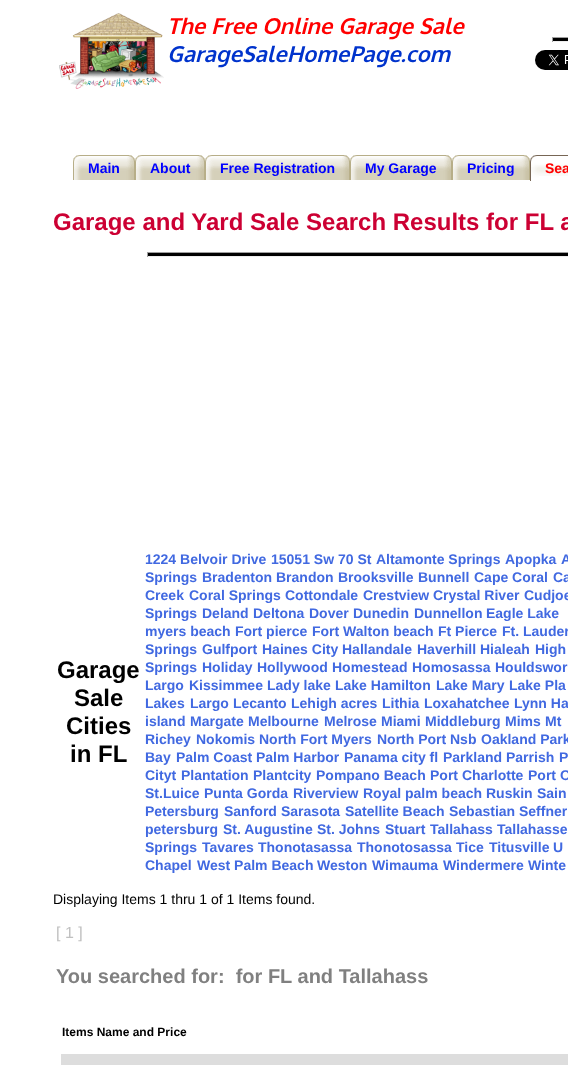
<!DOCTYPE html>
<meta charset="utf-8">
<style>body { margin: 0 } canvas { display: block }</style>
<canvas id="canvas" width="568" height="1065"></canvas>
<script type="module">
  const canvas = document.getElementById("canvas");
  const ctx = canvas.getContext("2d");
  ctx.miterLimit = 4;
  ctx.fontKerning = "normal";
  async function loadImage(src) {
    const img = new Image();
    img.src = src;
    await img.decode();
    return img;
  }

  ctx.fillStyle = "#ffffff";
  ctx.fillRect(0, 0, 568, 1065);
  ctx.drawImage(await loadImage("img1.png"), 59, 13, 105, 76);
  ctx.font = "italic bold 22px Oxygen";
  ctx.fillStyle = "#ff0000";
  ctx.fillText("The Free Online Garage Sale", 167, 34);
  ctx.fillStyle = "#0033cc";
  ctx.fillText("GarageSaleHomePage.com", 167, 62);
  ctx.fillStyle = "#000000";
  ctx.fillRect(552, 38, 16, 3);
  ctx.fillStyle = "#9f9f9f";
  ctx.fillRect(552, 37, 16, 1);
  ctx.fillStyle = "#eeeeee";
  ctx.fillRect(552, 41, 16, 1);
  ctx.fillStyle = "#9f9f9f";
  ctx.fillRect(552, 37, 1, 5);
  ctx.drawImage(await loadImage("img2.png"), 535, 50, 33, 20);
  ctx.drawImage(await loadImage("img3.png"), 73, 155, 9, 25);
  ctx.drawImage(await loadImage("img4.png"), 82, 155, 53, 25);
  ctx.font = "bold 14px Liberation Sans";
  ctx.fillStyle = "#0000ff";
  ctx.fillText("Main", 88, 173);
  ctx.drawImage(await loadImage("img3.png"), 135, 155, 9, 25);
  ctx.drawImage(await loadImage("img5.png"), 144, 155, 61, 25);
  ctx.fillText("About", 150, 173);
  ctx.drawImage(await loadImage("img3.png"), 205, 155, 9, 25);
  ctx.drawImage(await loadImage("img6.png"), 214, 155, 136, 25);
  ctx.fillText("Free Registration", 220, 173);
  ctx.drawImage(await loadImage("img3.png"), 350, 155, 9, 25);
  ctx.drawImage(await loadImage("img7.png"), 359, 155, 93, 25);
  ctx.fillText("My Garage", 365, 173);
  ctx.drawImage(await loadImage("img3.png"), 452, 155, 9, 25);
  ctx.drawImage(await loadImage("img8.png"), 461, 155, 69, 25);
  ctx.fillText("Pricing", 467, 173);
  ctx.drawImage(await loadImage("img9.png"), 530, 155, 9, 26);
  ctx.drawImage(await loadImage("img10.png"), 539, 155, 29, 21);
  ctx.fillStyle = "#ff0000";
  ctx.fillText("Sea", 545, 173);
  ctx.font = "bold 24px Liberation Sans";
  ctx.fillStyle = "#cc0033";
  ctx.fillText("Garage and Yard Sale Search Results for FL a", 53, 230);
  ctx.fillStyle = "#000000";
  ctx.fillRect(147, 253, 421, 3);
  ctx.fillStyle = "#9f9f9f";
  ctx.fillRect(147, 252, 421, 1);
  ctx.fillStyle = "#eeeeee";
  ctx.fillRect(147, 256, 421, 1);
  ctx.fillStyle = "#9f9f9f";
  ctx.fillRect(147, 252, 1, 5);
  ctx.fillStyle = "#000000";
  ctx.fillText("Garage", 57, 678);
  ctx.fillText("Sale", 74, 706);
  ctx.fillText("Cities", 66, 734);
  ctx.fillText("in FL", 70, 762);
  ctx.font = "bold 14px Liberation Sans";
  ctx.fillStyle = "#4169e1";
  ctx.fillText("1224 Belvoir Drive", 145, 564);
  ctx.fillText("15051 Sw 70 St", 271, 564);
  ctx.fillText("Altamonte Springs", 376, 564);
  ctx.fillText("Apopka", 505, 564);
  ctx.fillText("A", 561, 564);
  ctx.fillText("Springs", 145, 582);
  ctx.fillText("Bradenton", 202, 582);
  ctx.fillText("Brandon", 276, 582);
  ctx.fillText("Brooksville", 338, 582);
  ctx.fillText("Bunnell", 418, 582);
  ctx.fillText("Cape Coral", 474, 582);
  ctx.fillText("Ca", 553, 582);
  ctx.fillText("Creek", 145, 600);
  ctx.fillText("Coral Springs", 189, 600);
  ctx.fillText("Cottondale", 285, 600);
  ctx.fillText("Crestview", 363, 600);
  ctx.fillText("Crystal River", 433, 600);
  ctx.fillText("Cudjoe", 524, 600);
  ctx.fillText("Springs", 145, 618);
  ctx.fillText("Deland", 202, 618);
  ctx.fillText("Deltona", 253, 618);
  ctx.fillText("Dover", 309, 618);
  ctx.fillText("Dunedin", 353, 618);
  ctx.fillText("Dunnellon", 414, 618);
  ctx.fillText("Eagle Lake", 486, 618);
  ctx.fillText("myers beach", 145, 636);
  ctx.fillText("Fort pierce", 235, 636);
  ctx.fillText("Fort Walton beach", 312, 636);
  ctx.fillText("Ft Pierce", 438, 636);
  ctx.fillText("Ft. Lauder", 502, 636);
  ctx.fillText("Springs", 145, 654);
  ctx.fillText("Gulfport", 202, 654);
  ctx.fillText("Haines City", 262, 654);
  ctx.fillText("Hallandale", 342, 654);
  ctx.fillText("Haverhill", 417, 654);
  ctx.fillText("Hialeah", 480, 654);
  ctx.fillText("High", 535, 654);
  ctx.fillText("Springs", 145, 672);
  ctx.fillText("Holiday", 202, 672);
  ctx.fillText("Hollywood", 257, 672);
  ctx.fillText("Homestead", 332, 672);
  ctx.fillText("Homosassa", 412, 672);
  ctx.fillText("Houldswor", 495, 672);
  ctx.fillText("Largo", 145, 690);
  ctx.fillText("Kissimmee", 189, 690);
  ctx.fillText("Lady lake", 267, 690);
  ctx.fillText("Lake Hamilton", 335, 690);
  ctx.fillText("Lake Mary", 436, 690);
  ctx.fillText("Lake Pla", 509, 690);
  ctx.fillText("Lakes", 145, 708);
  ctx.fillText("Largo", 190, 708);
  ctx.fillText("Lecanto", 233, 708);
  ctx.fillText("Lehigh acres", 291, 708);
  ctx.fillText("Lithia", 382, 708);
  ctx.fillText("Loxahatchee", 424, 708);
  ctx.fillText("Lynn Ha", 514, 708);
  ctx.fillText("island", 145, 726);
  ctx.fillText("Margate", 190, 726);
  ctx.fillText("Melbourne", 248, 726);
  ctx.fillText("Melrose", 324, 726);
  ctx.fillText("Miami", 381, 726);
  ctx.fillText("Middleburg", 425, 726);
  ctx.fillText("Mims", 505, 726);
  ctx.fillText("Mt", 545, 726);
  ctx.fillText("Richey", 145, 744);
  ctx.fillText("Nokomis", 196, 744);
  ctx.fillText("North Fort Myers", 259, 744);
  ctx.fillText("North Port", 377, 744);
  ctx.fillText("Nsb", 450, 744);
  ctx.fillText("Oakland Park", 481, 744);
  ctx.fillText("Bay", 145, 762);
  ctx.fillText("Palm Coast", 176, 762);
  ctx.fillText("Palm Harbor", 256, 762);
  ctx.fillText("Panama city fl", 344, 762);
  ctx.fillText("Parkland", 443, 762);
  ctx.fillText("Parrish", 506, 762);
  ctx.fillText("P", 559, 762);
  ctx.fillText("Cityt", 145, 780);
  ctx.fillText("Plantation", 181, 780);
  ctx.fillText("Plantcity", 253, 780);
  ctx.fillText("Pompano Beach", 316, 780);
  ctx.fillText("Port Charlotte", 430, 780);
  ctx.fillText("Port O", 528, 780);
  ctx.fillText("St.Luice", 145, 798);
  ctx.fillText("Punta Gorda", 204, 798);
  ctx.fillText("Riverview", 293, 798);
  ctx.fillText("Royal palm beach", 363, 798);
  ctx.fillText("Ruskin", 486, 798);
  ctx.fillText("Sain", 537, 798);
  ctx.fillText("Petersburg", 145, 816);
  ctx.fillText("Sanford", 224, 816);
  ctx.fillText("Sarasota", 281, 816);
  ctx.fillText("Satellite Beach", 345, 816);
  ctx.fillText("Sebastian", 449, 816);
  ctx.fillText("Seffner", 519, 816);
  ctx.fillText("petersburg", 145, 834);
  ctx.fillText("St. Augustine", 223, 834);
  ctx.fillText("St. Johns", 317, 834);
  ctx.fillText("Stuart", 385, 834);
  ctx.fillText("Tallahass", 430, 834);
  ctx.fillText("Tallahasse", 497, 834);
  ctx.fillText("Springs", 145, 852);
  ctx.fillText("Tavares", 202, 852);
  ctx.fillText("Thonotasassa", 258, 852);
  ctx.fillText("Thonotosassa", 357, 852);
  ctx.fillText("Tice", 456, 852);
  ctx.fillText("Titusville", 489, 852);
  ctx.fillText("U", 553, 852);
  ctx.fillText("Chapel", 145, 870);
  ctx.fillText("West Palm Beach", 197, 870);
  ctx.fillText("Weston", 317, 870);
  ctx.fillText("Wimauma", 372, 870);
  ctx.fillText("Windermere", 443, 870);
  ctx.fillText("Winte", 528, 870);
  ctx.font = "14px Liberation Sans";
  ctx.fillStyle = "#000000";
  ctx.fillText("Displaying Items 1 thru 1 of 1 Items found.", 53, 904);
  ctx.font = "16px Liberation Sans";
  ctx.fillStyle = "#c0c0c0";
  ctx.fillText("[ 1 ]", 56, 938);
  ctx.font = "bold 20px Liberation Sans";
  ctx.fillStyle = "#808080";
  ctx.fillText("You searched for:  for FL and Tallahass", 56, 983);
  ctx.font = "bold 12px Liberation Sans";
  ctx.fillStyle = "#000000";
  ctx.fillText("Items Name and Price", 62, 1036);
  ctx.fillStyle = "#dddddd";
  ctx.fillRect(61, 1054, 507, 11);
</script>
